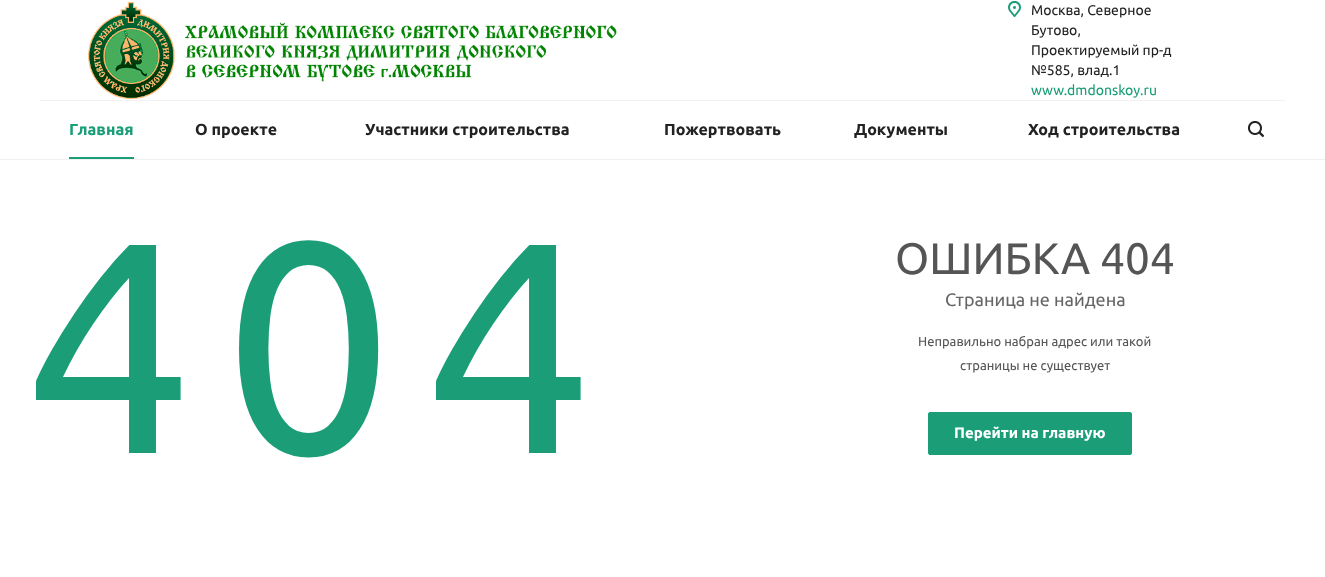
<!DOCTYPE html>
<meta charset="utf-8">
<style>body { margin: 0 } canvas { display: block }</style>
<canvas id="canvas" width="1325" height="577"></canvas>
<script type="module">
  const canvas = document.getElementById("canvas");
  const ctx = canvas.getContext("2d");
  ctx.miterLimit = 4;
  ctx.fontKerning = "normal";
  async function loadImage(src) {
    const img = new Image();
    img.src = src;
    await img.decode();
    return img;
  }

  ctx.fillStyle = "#ffffff";
  ctx.fillRect(0, 0, 1325, 577);
  ctx.drawImage(await loadImage("img1.png"), 88, 2, 529, 97);
  ctx.drawImage(await loadImage("img2.png"), 1008, 1, 13, 16);
  ctx.font = "14px Ubuntu";
  ctx.fillStyle = "#222222";
  ctx.fillText("Москва, Северное", 1031, 15);
  ctx.fillText("Бутово,", 1031, 35);
  ctx.fillText("Проектируемый пр-д", 1031, 55);
  ctx.fillText("№585, влад.1", 1031, 75);
  ctx.fillStyle = "#1b9e77";
  ctx.fillText("www.dmdonskoy.ru", 1031, 95);
  ctx.fillStyle = "#f2f2f2";
  ctx.fillRect(40, 100, 1245, 1);
  ctx.font = "bold 16px Ubuntu";
  ctx.fillStyle = "#1b9e77";
  ctx.fillText("Главная", 69, 135);
  ctx.fillRect(69, 157, 65, 2);
  ctx.fillStyle = "#222222";
  ctx.fillText("О проекте", 195, 135);
  ctx.fillText("Участники строительства", 365, 135);
  ctx.fillText("Пожертвовать", 664, 135);
  ctx.fillText("Документы", 854, 135);
  ctx.fillText("Ход строительства", 1028, 135);
  ctx.drawImage(await loadImage("img3.png"), 1248, 121, 16, 16);
  ctx.fillStyle = "#f0f0f0";
  ctx.fillRect(0, 159, 1325, 1);
  ctx.font = "300px Ubuntu";
  ctx.fillStyle = "#1b9e77";
  ctx.fillText("4", 24, 453);
  ctx.fillText("0", 224, 453);
  ctx.fillText("4", 424, 453);
  ctx.font = "44px Ubuntu";
  ctx.fillStyle = "#555555";
  ctx.fillText("ОШИБКА 404", 895, 274);
  ctx.font = "18px Ubuntu";
  ctx.fillStyle = "#666666";
  ctx.fillText("Страница не найдена", 945, 306);
  ctx.font = "13px Ubuntu";
  ctx.fillStyle = "#555555";
  ctx.fillText("Неправильно набран адрес или такой", 918, 346);
  ctx.fillText("страницы не существует", 960, 370);
  ctx.fillStyle = "#1b9e77";
  ctx.beginPath();
  ctx.roundRect(928.5, 412.5, 203, 42, 1.5);
  ctx.fill();
  ctx.strokeStyle = "#1b9e77";
  ctx.stroke();
  ctx.font = "bold 15px Ubuntu";
  ctx.fillStyle = "#ffffff";
  ctx.fillText("Перейти на главную", 954, 438);
</script>
